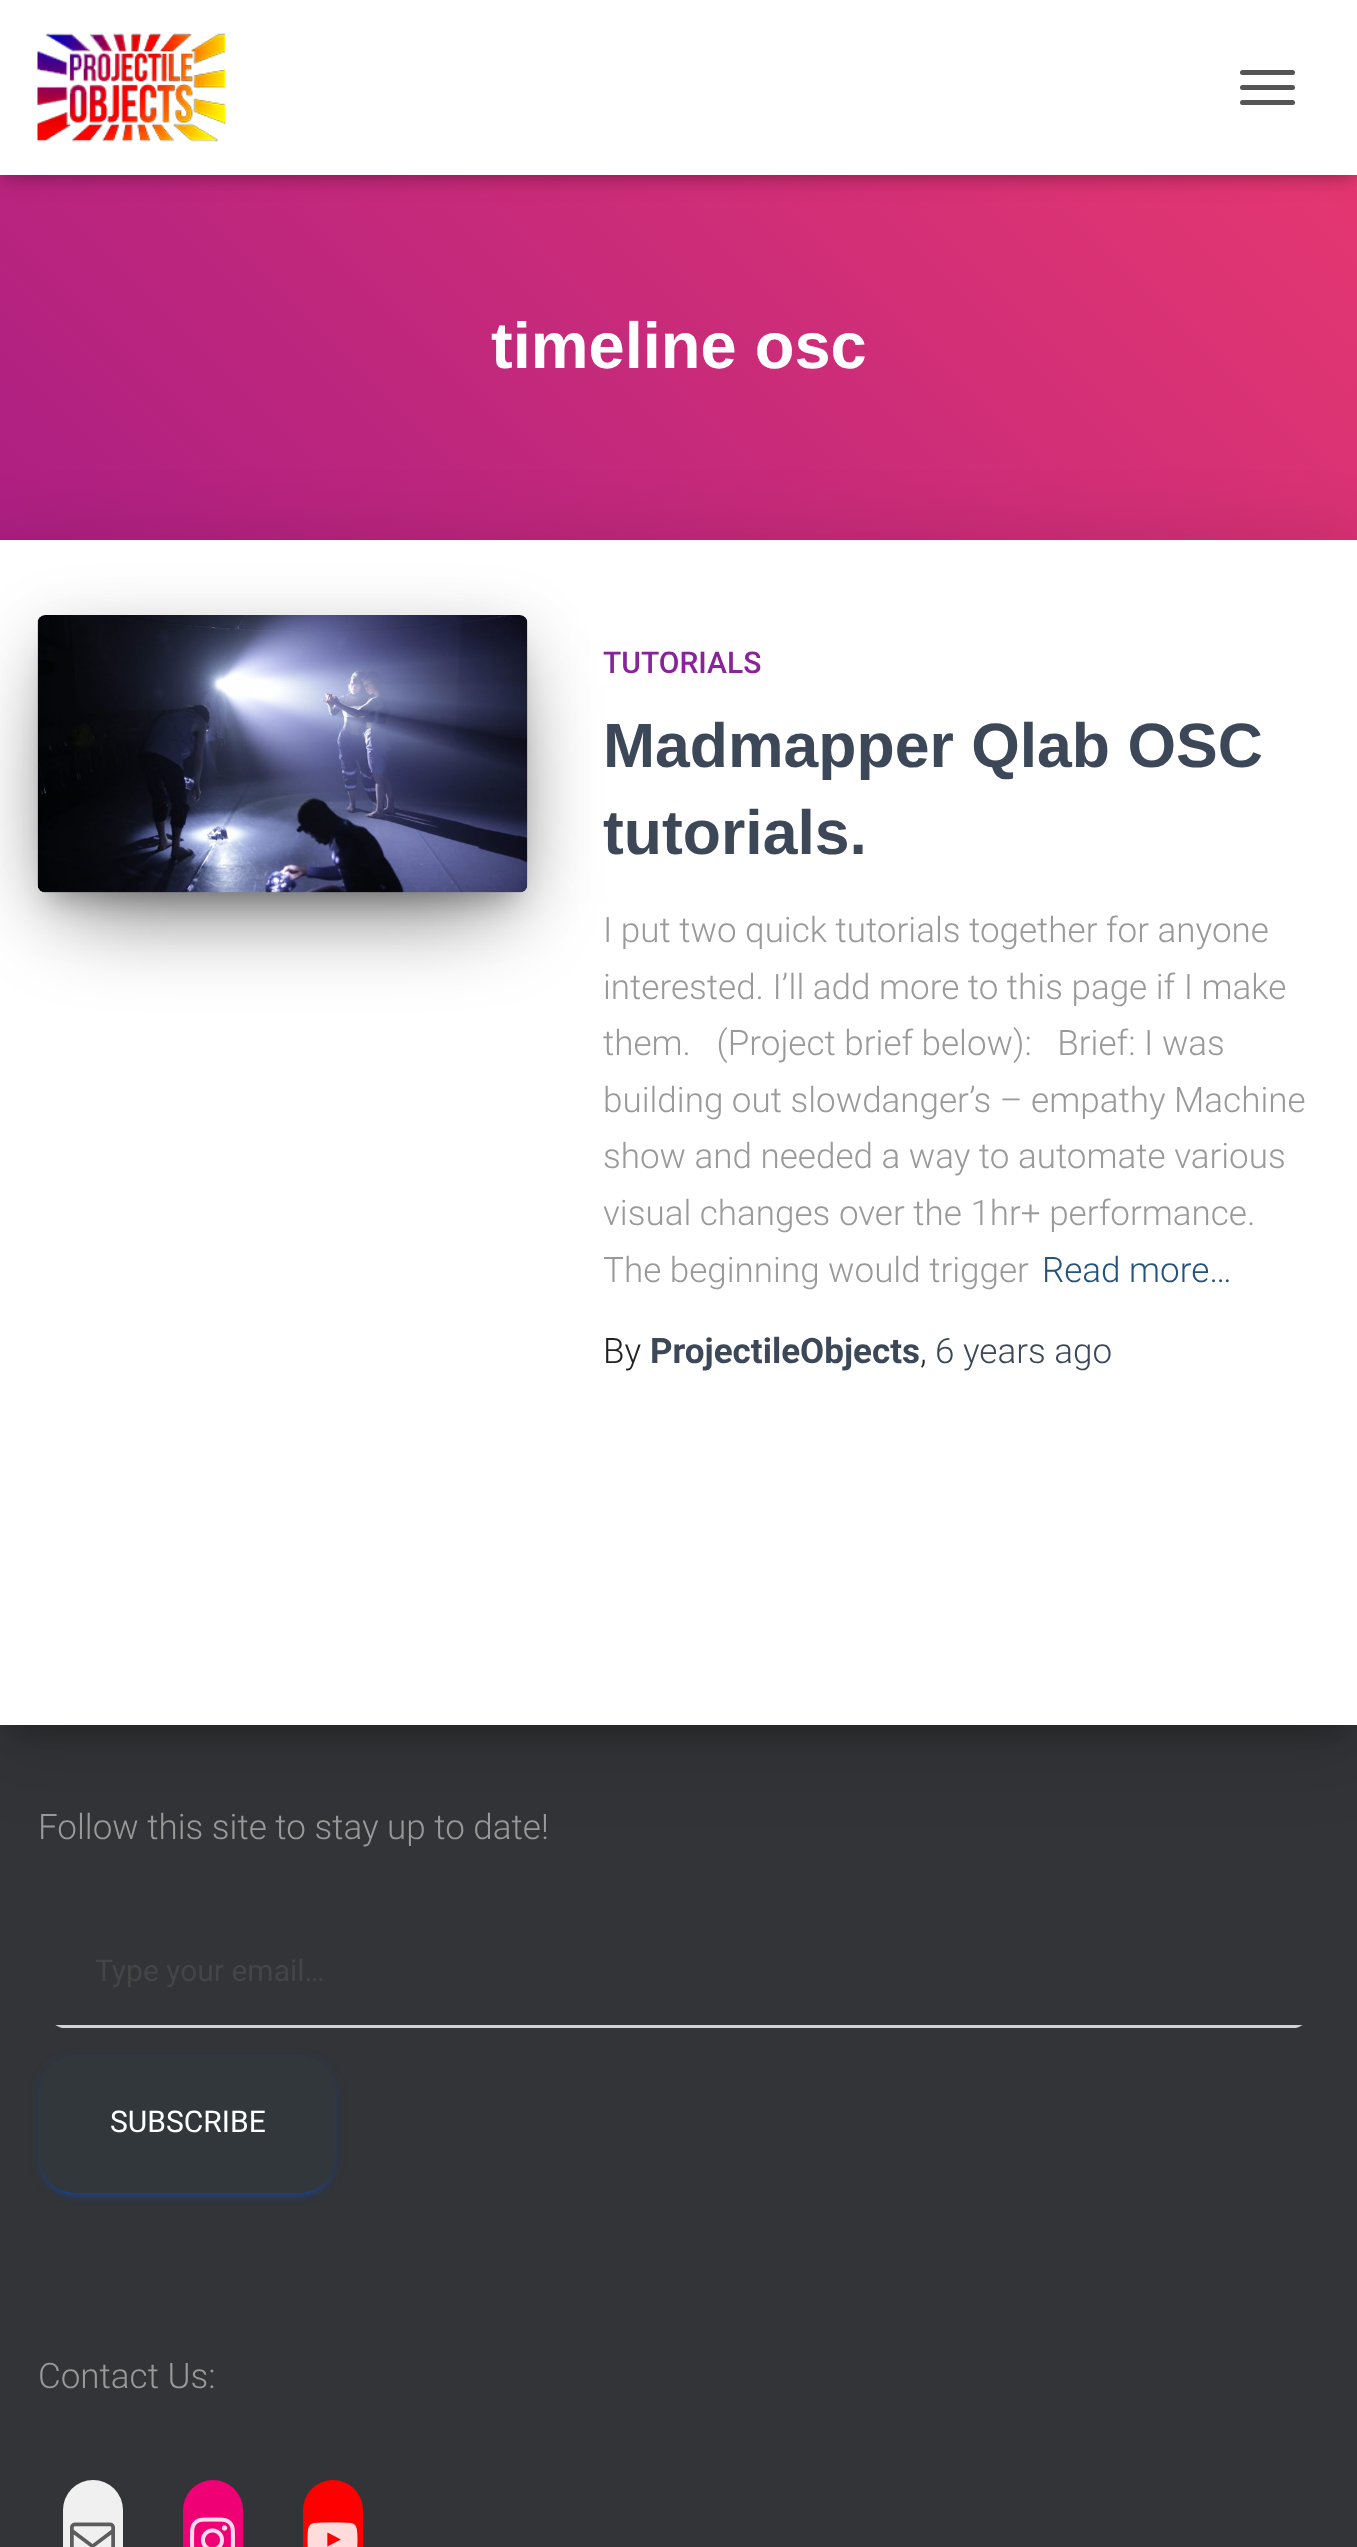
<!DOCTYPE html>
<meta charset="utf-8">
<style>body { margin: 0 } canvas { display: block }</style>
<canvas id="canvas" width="1357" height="2547"></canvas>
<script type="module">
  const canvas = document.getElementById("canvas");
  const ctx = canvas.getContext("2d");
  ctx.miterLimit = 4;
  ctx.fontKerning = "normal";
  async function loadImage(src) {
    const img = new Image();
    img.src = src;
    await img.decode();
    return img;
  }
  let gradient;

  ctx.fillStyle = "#323437";
  ctx.fillRect(0, 0, 1357, 2547);
  gradient = ctx.createLinearGradient(167, 857, 1191, -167);
  gradient.addColorStop(0, "#a81d84");
  gradient.addColorStop(1, "#ea396f");
  ctx.fillStyle = gradient;
  ctx.fillRect(0, 175, 1357, 365);
  ctx.fillStyle = "rgba(0, 0, 0, 0.1)";
  ctx.filter = "blur(6px)";
  ctx.beginPath();
  ctx.rect(5, 15, 1348, 165);
  ctx.fill();
  ctx.filter = "none";
  ctx.fillStyle = "rgba(0, 0, 0, 0.12)";
  ctx.filter = "blur(12.5px)";
  ctx.beginPath();
  ctx.rect(0, 3, 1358, 175);
  ctx.fill();
  ctx.filter = "none";
  ctx.fillStyle = "rgba(0, 0, 0, 0.42)";
  ctx.filter = "blur(12.5px)";
  ctx.beginPath();
  ctx.rect(15, 18, 1328, 145);
  ctx.fill();
  ctx.filter = "none";
  ctx.fillStyle = "#ffffff";
  ctx.fillRect(0, 0, 1357, 175);
  ctx.drawImage(await loadImage("img1.png"), 37, 33, 188, 109);
  ctx.fillStyle = "#555555";
  ctx.beginPath();
  ctx.roundRect(1240, 70, 55, 5, 2.5);
  ctx.fill();
  ctx.beginPath();
  ctx.roundRect(1240, 85, 55, 5, 2.5);
  ctx.fill();
  ctx.beginPath();
  ctx.roundRect(1240, 100, 55, 5, 2.5);
  ctx.fill();
  ctx.font = "bold 65px Liberation Sans";
  ctx.fillStyle = "#ffffff";
  ctx.fillText("timeline osc", 491, 368);
  ctx.fillStyle = "rgba(0, 0, 0, 0.2)";
  ctx.filter = "blur(12.5px)";
  ctx.beginPath();
  ctx.rect(13, 573, 1332, 1160);
  ctx.fill();
  ctx.filter = "none";
  ctx.fillStyle = "rgba(0, 0, 0, 0.12)";
  ctx.filter = "blur(37.5px)";
  ctx.beginPath();
  ctx.rect(-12, 543, 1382, 1210);
  ctx.fill();
  ctx.filter = "none";
  ctx.fillStyle = "#ffffff";
  ctx.fillRect(0, 540, 1357, 1185);
  ctx.fillStyle = "rgba(0, 0, 0, 0.2)";
  ctx.filter = "blur(12.5px)";
  ctx.beginPath();
  ctx.rect(50, 648, 465, 252);
  ctx.fill();
  ctx.filter = "none";
  ctx.fillStyle = "rgba(0, 0, 0, 0.12)";
  ctx.filter = "blur(31px)";
  ctx.beginPath();
  ctx.roundRect(38, 625, 490, 278, 8);
  ctx.fill();
  ctx.filter = "none";
  ctx.fillStyle = "rgba(0, 0, 0, 0.56)";
  ctx.filter = "blur(47.5px)";
  ctx.beginPath();
  ctx.rect(68, 685, 430, 218);
  ctx.fill();
  ctx.filter = "none";
  ctx.drawImage(await loadImage("img2.png"), 37, 615, 491, 278);
  ctx.font = "500 30px Roboto";
  ctx.fillStyle = "#89229b";
  ctx.fillText("TUTORIALS", 603, 673);
  ctx.font = "bold 62.5px Liberation Sans";
  ctx.fillStyle = "#3c4858";
  ctx.fillText("Madmapper Qlab OSC", 603, 767);
  ctx.fillText("tutorials.", 603, 854);
  ctx.font = "300 35px Roboto";
  ctx.fillStyle = "#999999";
  ctx.fillText("I put two quick tutorials together for anyone", 603, 942);
  ctx.fillText("interested. I’ll add more to this page if I make", 603, 999);
  ctx.fillText("them.   (Project brief below):   Brief: I was", 603, 1055);
  ctx.fillText("building out slowdanger’s – empathy Machine", 603, 1112);
  ctx.fillText("show and needed a way to automate various", 603, 1168);
  ctx.fillText("visual changes over the 1hr+ performance.", 603, 1225);
  ctx.fillText("The beginning would trigger", 603, 1282);
  ctx.fillStyle = "#23527c";
  ctx.fillText("Read more…", 1042, 1282);
  ctx.fillStyle = "#212121";
  ctx.fillText("By", 603, 1363);
  ctx.font = "bold 35px Roboto";
  ctx.fillStyle = "#3c4858";
  ctx.fillText("ProjectileObjects", 650, 1363);
  ctx.font = "300 35px Roboto";
  ctx.fillStyle = "#212121";
  ctx.fillText(",", 920, 1363);
  ctx.fillStyle = "#3c4858";
  ctx.fillText("6 years ago", 935, 1363);
  ctx.fillStyle = "#999999";
  ctx.fillText("Follow this site to stay up to date!", 38, 1839);
  ctx.save();
  ctx.beginPath();
  ctx.roundRect(38, 1915, 1282, 115, 35);
  ctx.clip();
  ctx.fillStyle = "#d2d2d2";
  ctx.fillRect(55, 2025, 1248, 3);
  ctx.restore();
  ctx.font = "30px Roboto";
  ctx.fillStyle = "#444546";
  ctx.fillText("Type your email…", 95, 1981);
  ctx.fillStyle = "rgba(0, 89, 255, 0.12)";
  ctx.filter = "blur(6px)";
  ctx.beginPath();
  ctx.roundRect(40, 2058, 295, 137, 35);
  ctx.fill();
  ctx.filter = "none";
  ctx.fillStyle = "rgba(0, 89, 255, 0.2)";
  ctx.filter = "blur(1px)";
  ctx.beginPath();
  ctx.roundRect(45, 2068, 285, 127, 30);
  ctx.fill();
  ctx.filter = "none";
  ctx.fillStyle = "rgba(0, 89, 255, 0.14)";
  ctx.filter = "blur(2.5px)";
  ctx.beginPath();
  ctx.roundRect(40, 2060, 295, 138, 35);
  ctx.fill();
  ctx.filter = "none";
  ctx.fillStyle = "#32373c";
  ctx.beginPath();
  ctx.roundRect(40, 2055, 295, 138, 35);
  ctx.fill();
  ctx.fillStyle = "#ffffff";
  ctx.fillText("SUBSCRIBE", 110, 2132);
  ctx.font = "300 35px Roboto";
  ctx.fillStyle = "#999999";
  ctx.fillText("Contact Us:", 38, 2388);
  ctx.fillStyle = "#f0f0f0";
  ctx.beginPath();
  ctx.roundRect(63, 2480, 60, 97, 30);
  ctx.fill();
  ctx.drawImage(await loadImage("img3.png"), 70, 2522, 45, 25);
  ctx.fillStyle = "#f00075";
  ctx.beginPath();
  ctx.roundRect(183, 2480, 60, 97, 30);
  ctx.fill();
  ctx.drawImage(await loadImage("img4.png"), 190, 2517, 45, 30);
  ctx.fillStyle = "#ff0000";
  ctx.beginPath();
  ctx.roundRect(303, 2480, 60, 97, 30);
  ctx.fill();
  ctx.drawImage(await loadImage("img5.png"), 307, 2522, 51, 25);
</script>
